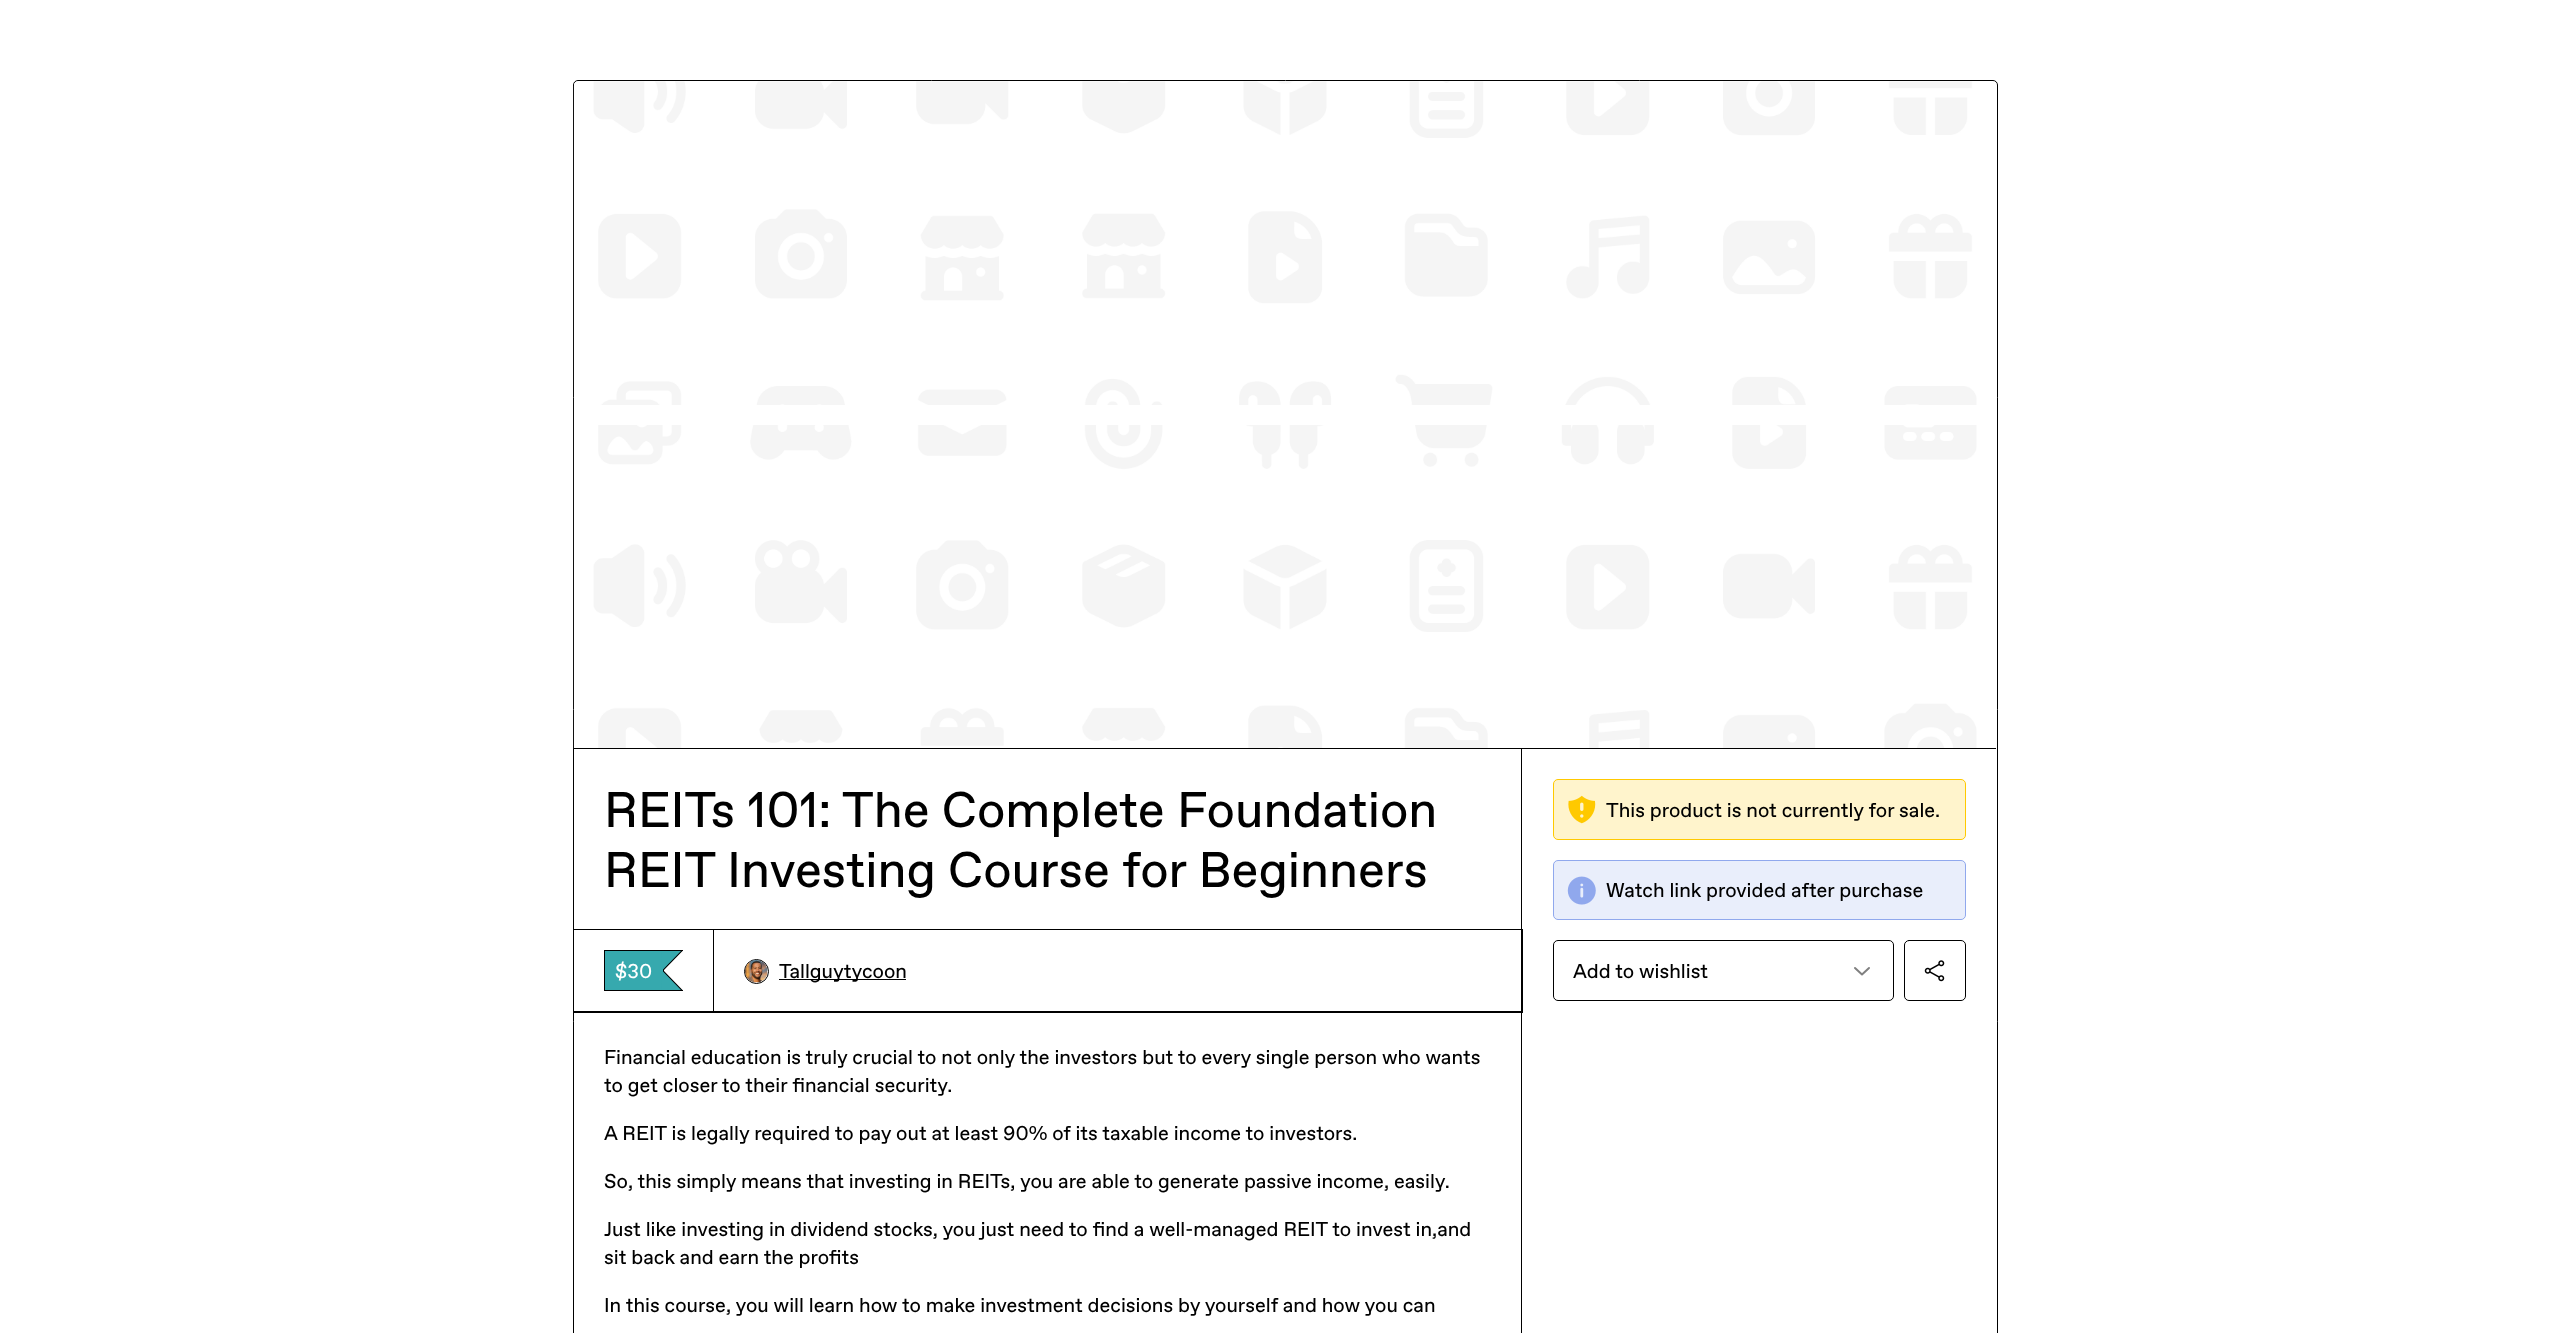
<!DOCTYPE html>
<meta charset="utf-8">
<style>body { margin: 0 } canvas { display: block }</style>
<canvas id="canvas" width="2569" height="1333"></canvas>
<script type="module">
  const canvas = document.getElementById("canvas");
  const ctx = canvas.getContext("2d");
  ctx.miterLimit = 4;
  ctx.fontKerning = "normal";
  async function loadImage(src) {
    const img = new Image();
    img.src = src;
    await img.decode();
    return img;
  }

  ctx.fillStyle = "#ffffff";
  ctx.fillRect(0, 0, 2569, 1333);
  ctx.beginPath();
  ctx.roundRect(573.5, 80.5, 1424, 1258, 4.5);
  ctx.strokeStyle = "#000000";
  ctx.stroke();
  ctx.drawImage(await loadImage("img1.png"), 573, 81, 1404, 668);
  ctx.fillStyle = "#000000";
  ctx.fillRect(574, 748, 1422, 1);
  ctx.fillStyle = "#ffffff";
  ctx.beginPath();
  ctx.roundRect(574, 405, 1422, 20, 5);
  ctx.fill();
  ctx.fillStyle = "#000000";
  ctx.fillRect(1521, 749, 1, 584);
  ctx.font = "50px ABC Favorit";
  ctx.fillText("REITs 101: The Complete Foundation", 604, 827);
  ctx.fillText("REIT Investing Course for Beginners", 604, 887);
  ctx.fillRect(574, 1011, 947, 1);
  ctx.strokeRect(573.5, 929.5, 140, 83);
  ctx.fillRect(604, 950, 79, 1);
  ctx.fillRect(604, 990, 79, 1);
  ctx.fillRect(604, 950, 1, 41);
  ctx.fillStyle = "#36a9ae";
  ctx.fillRect(605, 951, 58, 39);
  ctx.fillStyle = "#000000";
  ctx.beginPath();
  ctx.moveTo(662.5, 951);
  ctx.lineTo(682.5, 951);
  ctx.lineTo(664, 970);
  ctx.closePath();
  ctx.moveTo(682.5, 990);
  ctx.lineTo(662.5, 990);
  ctx.lineTo(664, 971);
  ctx.closePath();
  ctx.fill();
  ctx.fillRect(663, 968, 1, 5);
  ctx.fillStyle = "#36a9ae";
  ctx.beginPath();
  ctx.moveTo(661, 951);
  ctx.lineTo(681, 951);
  ctx.lineTo(662.5, 970);
  ctx.closePath();
  ctx.moveTo(681, 990);
  ctx.lineTo(661, 990);
  ctx.lineTo(662.5, 971);
  ctx.closePath();
  ctx.fill();
  ctx.font = "20px ABC Favorit";
  ctx.fillStyle = "#ffffff";
  ctx.fillText("$30", 615, 978);
  ctx.strokeRect(713.5, 929.5, 809, 83);
  ctx.beginPath();
  ctx.arc(756.5, 971.5, 12, 0, Math.PI * 2);
  ctx.stroke();
  ctx.drawImage(await loadImage("img2.png"), 745, 960, 23, 23);
  ctx.fillStyle = "#000000";
  ctx.fillRect(779, 979, 127, 1);
  ctx.fillText("Tallguytycoon", 779, 978);
  ctx.fillText("Financial education is truly crucial to not only the investors but to every single person who wants", 604, 1064);
  ctx.fillText("to get closer to their financial security.", 604, 1092);
  ctx.fillText("A REIT is legally required to pay out at least 90% of its taxable income to investors.", 604, 1140);
  ctx.fillText("So, this simply means that investing in REITs, you are able to generate passive income, easily.", 604, 1188);
  ctx.fillText("Just like investing in dividend stocks, you just need to find a well-managed REIT to invest in,and", 604, 1236);
  ctx.fillText("sit back and earn the profits", 604, 1264);
  ctx.fillText("In this course, you will learn how to make investment decisions by yourself and how you can", 604, 1312);
  ctx.fillStyle = "#fff4cc";
  ctx.beginPath();
  ctx.roundRect(1553.5, 779.5, 412, 60, 4.5);
  ctx.fill();
  ctx.strokeStyle = "#ffc900";
  ctx.stroke();
  ctx.drawImage(await loadImage("img3.png"), 1568, 795, 28, 29);
  ctx.fillStyle = "#000000";
  ctx.fillText("This product is not currently for sale.", 1606, 817);
  ctx.fillStyle = "#e9eefb";
  ctx.beginPath();
  ctx.roundRect(1553.5, 860.5, 412, 59, 4.5);
  ctx.fill();
  ctx.strokeStyle = "#90a8ed";
  ctx.stroke();
  ctx.drawImage(await loadImage("img4.png"), 1567, 876, 29, 29);
  ctx.fillStyle = "#000000";
  ctx.fillText("Watch link provided after purchase", 1606, 897);
  ctx.beginPath();
  ctx.roundRect(1553.5, 940.5, 340, 60, 4.5);
  ctx.strokeStyle = "#000000";
  ctx.stroke();
  ctx.fillText("Add to wishlist", 1573, 978);
  ctx.beginPath();
  ctx.moveTo(1869, 968);
  ctx.lineTo(1862, 974.5);
  ctx.lineTo(1855, 968);
  ctx.strokeStyle = "#808080";
  ctx.lineWidth = 2;
  ctx.lineCap = "round";
  ctx.lineJoin = "round";
  ctx.stroke();
  ctx.beginPath();
  ctx.roundRect(1904.5, 940.5, 61, 60, 4.5);
  ctx.strokeStyle = "#000000";
  ctx.lineWidth = 1;
  ctx.lineJoin = "miter";
  ctx.stroke();
  ctx.drawImage(await loadImage("img5.png"), 1924, 960, 21, 22);
</script>
